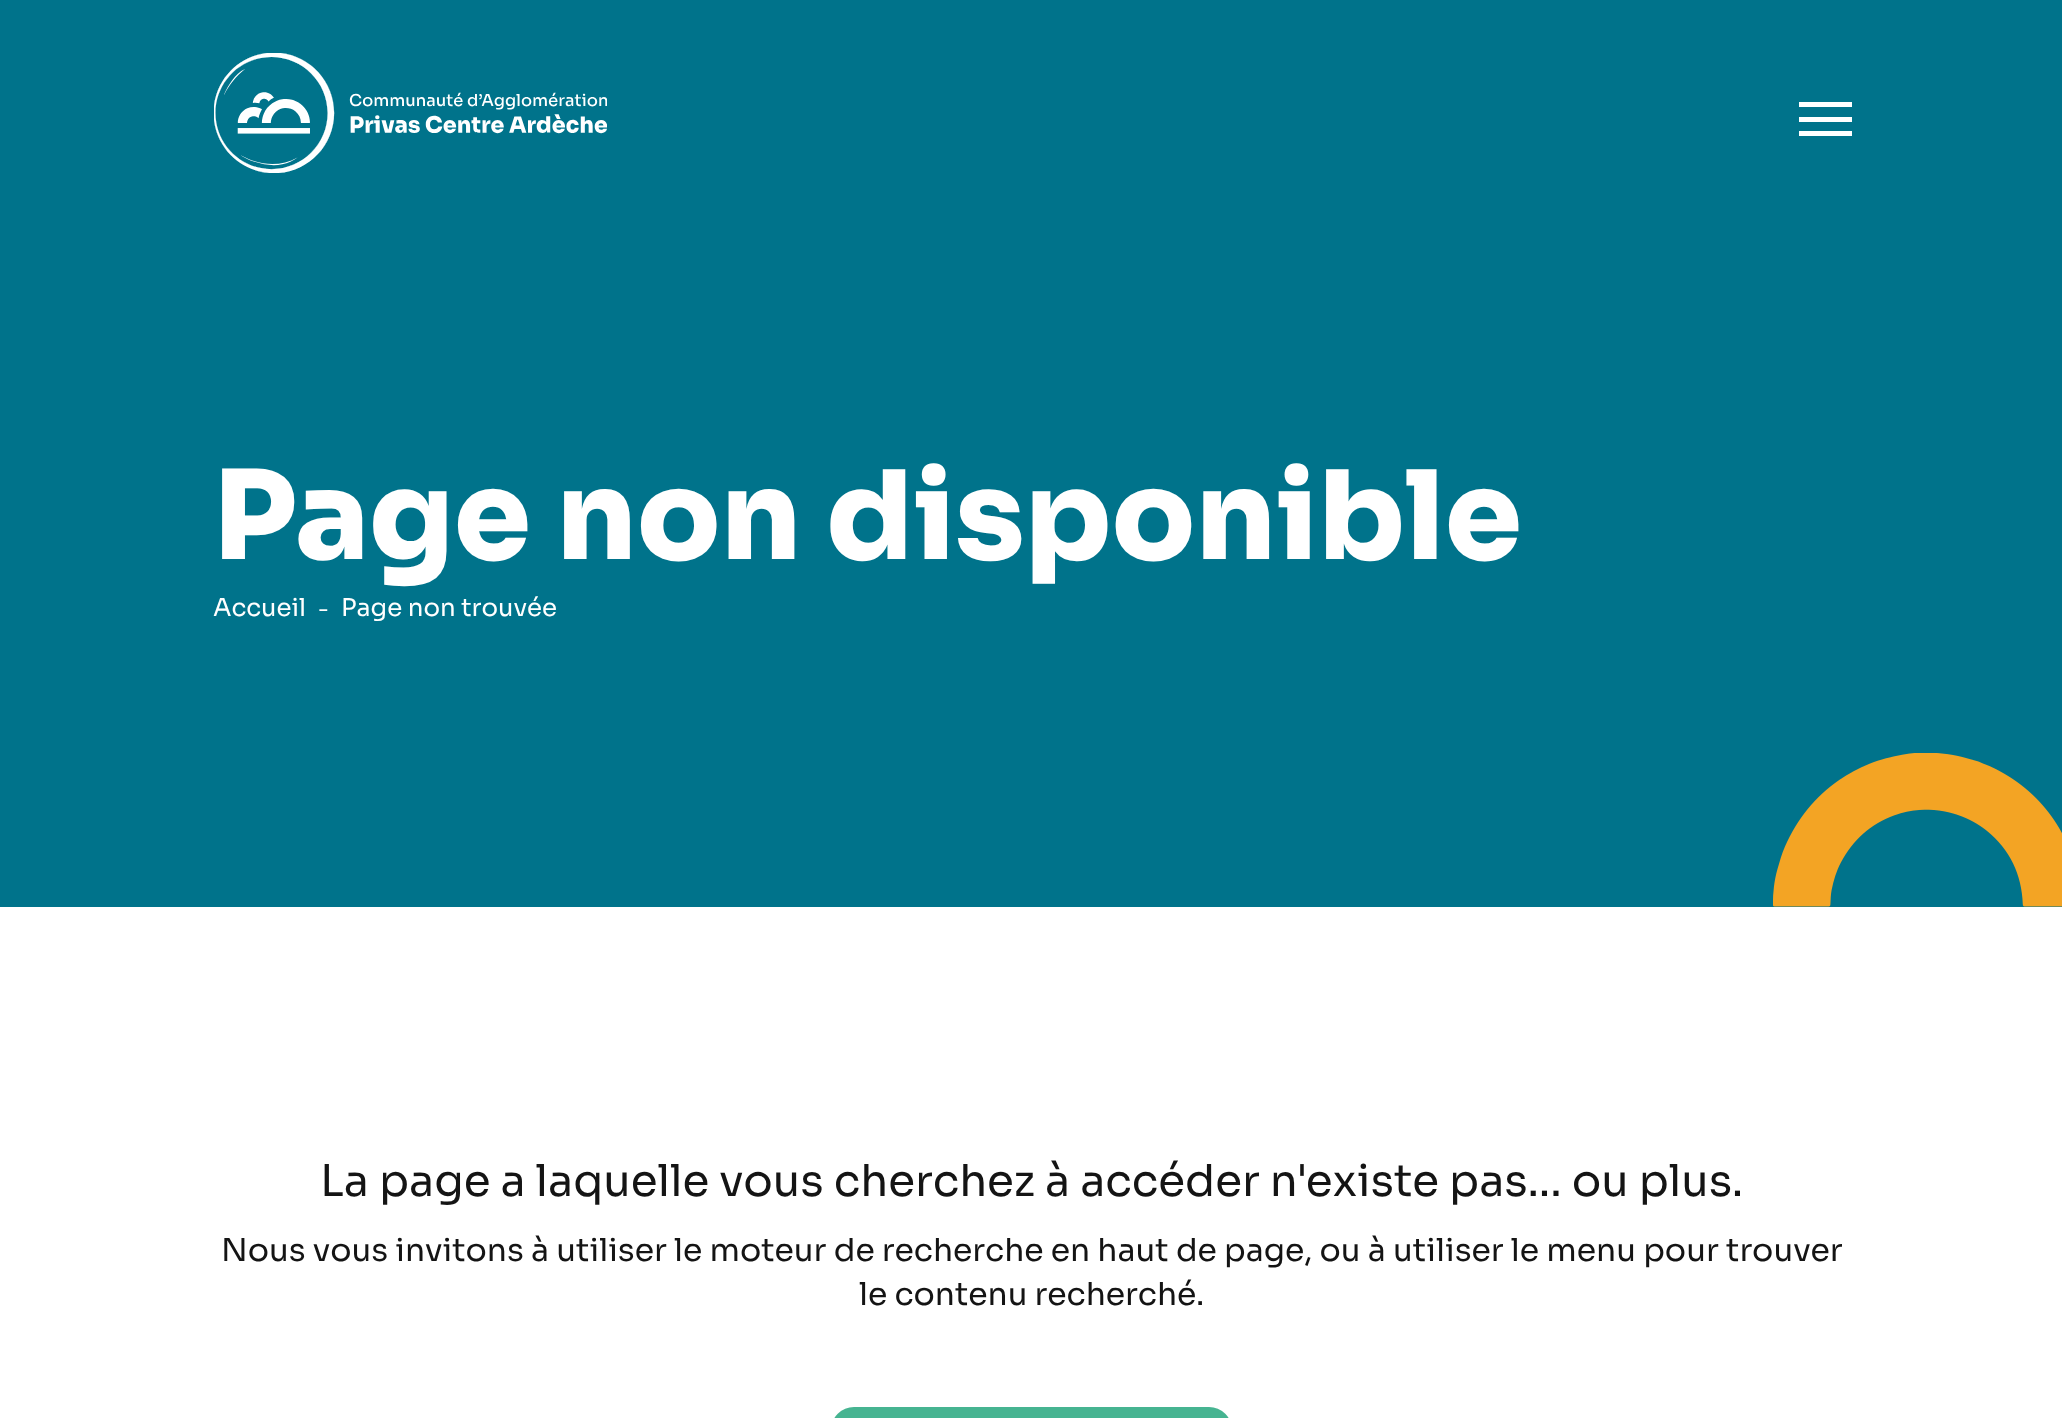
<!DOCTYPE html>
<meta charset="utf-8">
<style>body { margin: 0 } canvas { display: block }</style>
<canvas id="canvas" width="2062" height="1418"></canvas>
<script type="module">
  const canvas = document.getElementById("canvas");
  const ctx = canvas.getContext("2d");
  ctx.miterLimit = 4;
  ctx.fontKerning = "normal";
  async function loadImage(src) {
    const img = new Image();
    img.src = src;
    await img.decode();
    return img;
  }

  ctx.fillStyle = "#ffffff";
  ctx.fillRect(0, 0, 2062, 1418);
  ctx.fillStyle = "#00738b";
  ctx.fillRect(0, 0, 2062, 907);
  ctx.drawImage(await loadImage("img1.png"), 214, 53, 393, 120);
  ctx.fillStyle = "#ffffff";
  ctx.fillRect(1799, 102, 53, 5);
  ctx.fillRect(1799, 117, 53, 5);
  ctx.fillRect(1799, 131, 53, 5);
  ctx.font = "800 123px Sora";
  ctx.fillText("Page non disponible", 213, 559);
  ctx.font = "24.5px Sora";
  ctx.fillText("Accueil", 213, 616);
  ctx.font = "21px Sora";
  ctx.fillText("-", 318, 616);
  ctx.font = "24.5px Sora";
  ctx.fillText("Page non trouvée", 341, 616);
  ctx.drawImage(await loadImage("img2.png"), 1773, 753, 289, 154);
  ctx.font = "43.75px Sora";
  ctx.fillStyle = "#141414";
  ctx.fillText("La page a laquelle vous cherchez à accéder n'existe pas... ou plus.", 320, 1196);
  ctx.font = "31.5px Sora";
  ctx.fillText("Nous vous invitons à utiliser le moteur de recherche en haut de page, ou à utiliser le menu pour trouver", 221, 1261);
  ctx.fillText("le contenu recherché.", 859, 1305);
  ctx.fillStyle = "#46b491";
  ctx.beginPath();
  ctx.roundRect(831, 1407, 401, 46, 35);
  ctx.fill();
</script>
